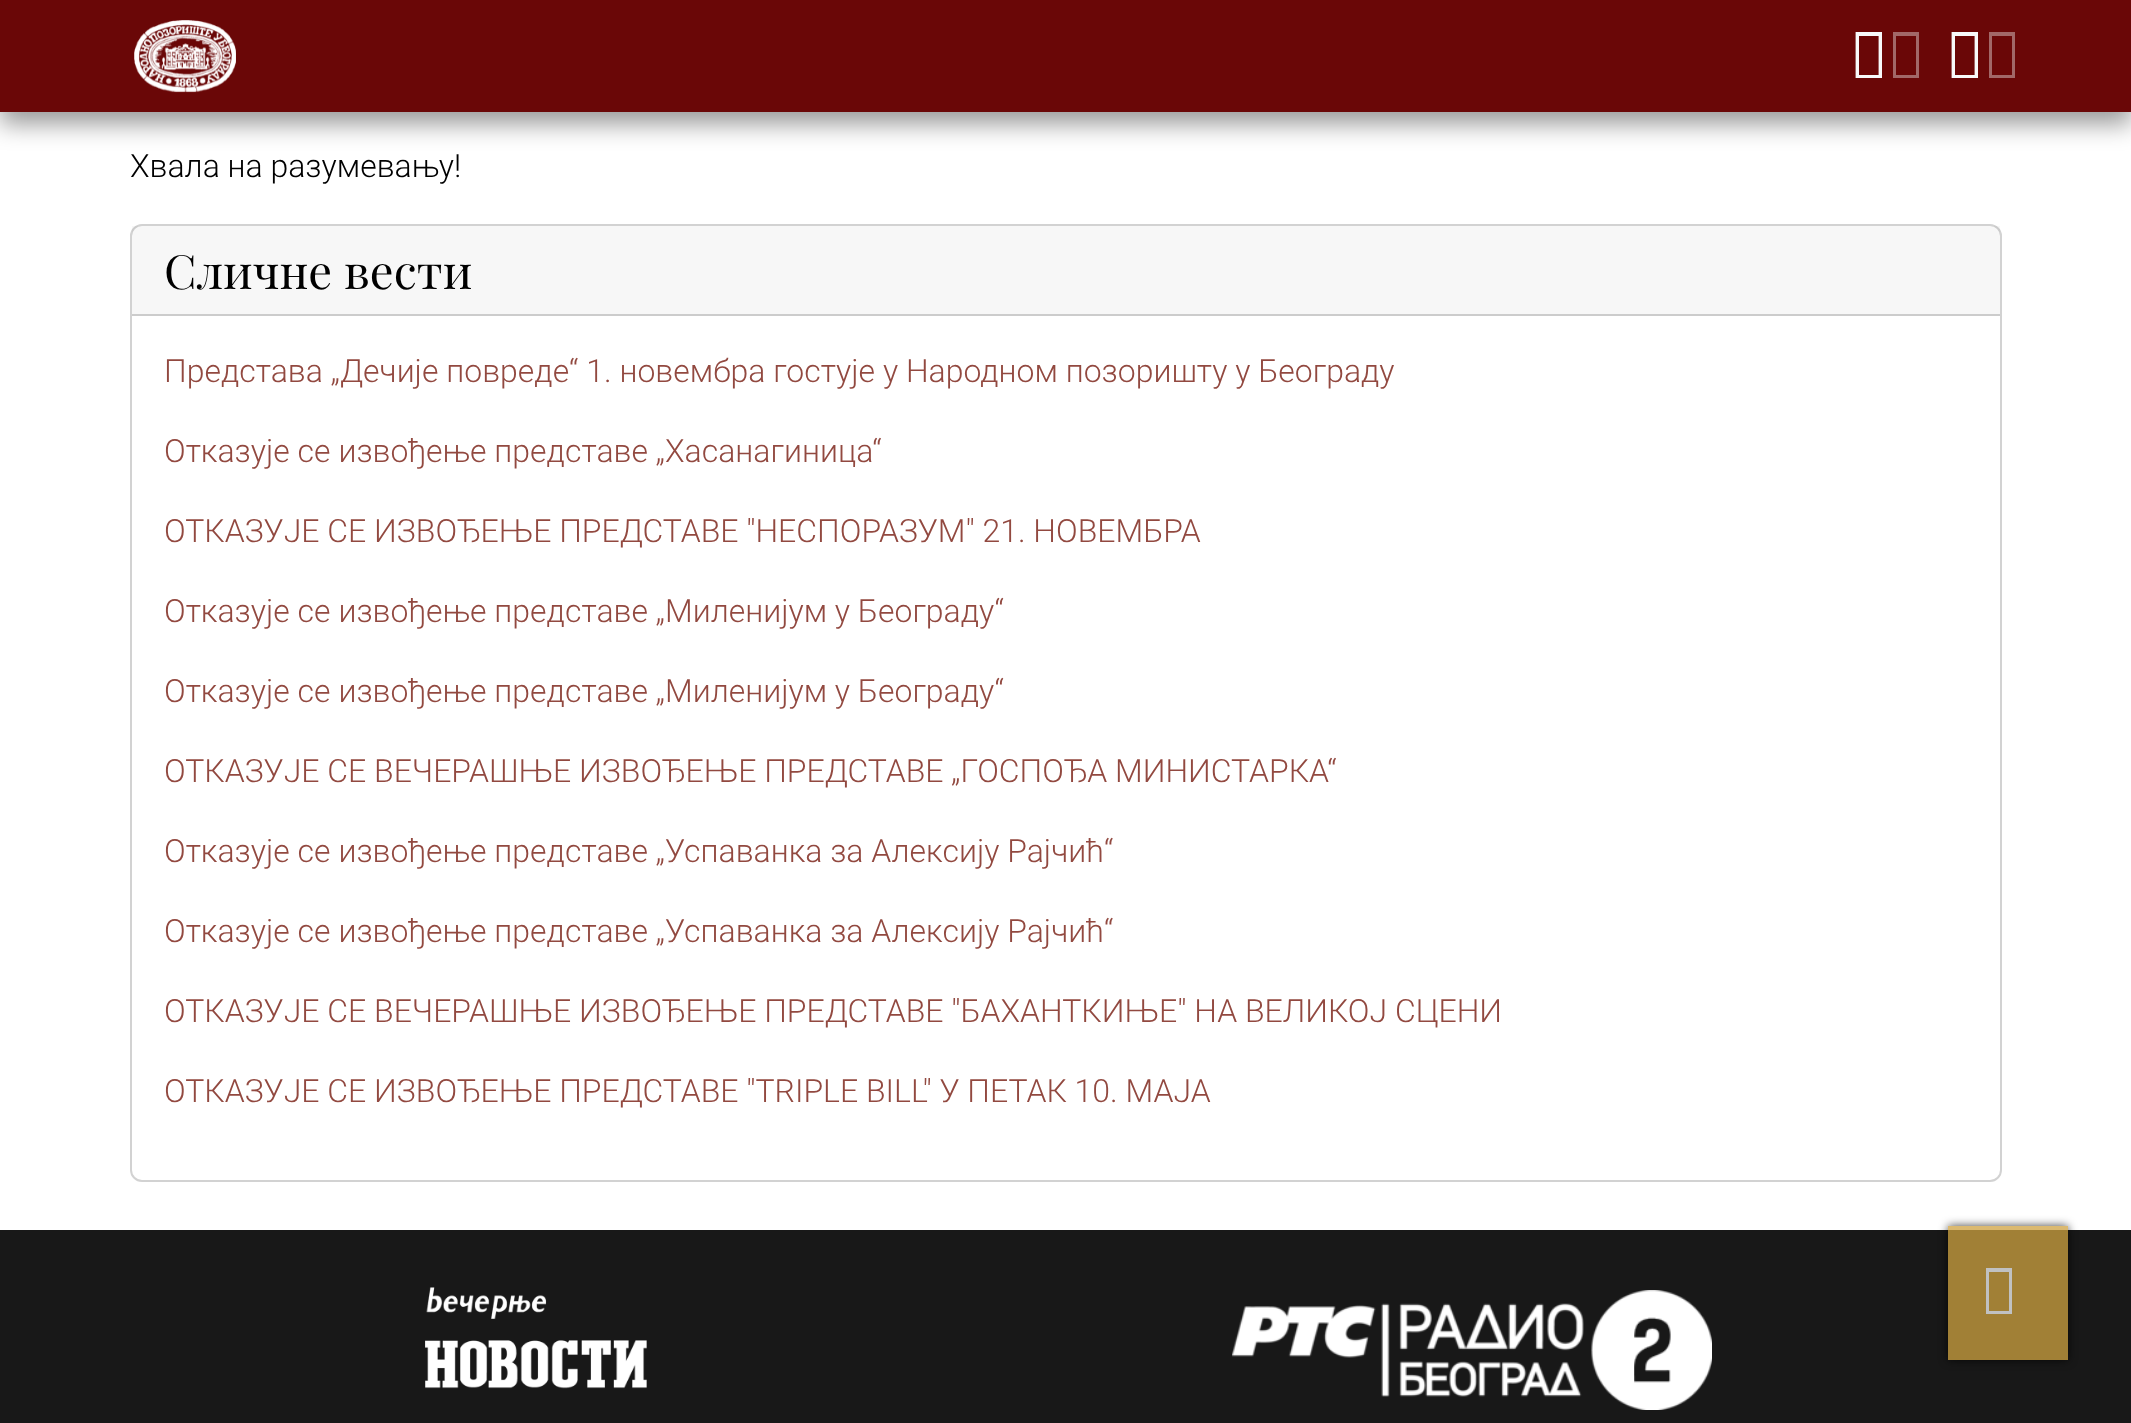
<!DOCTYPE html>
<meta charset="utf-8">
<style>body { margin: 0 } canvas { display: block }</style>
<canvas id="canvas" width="2131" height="1423"></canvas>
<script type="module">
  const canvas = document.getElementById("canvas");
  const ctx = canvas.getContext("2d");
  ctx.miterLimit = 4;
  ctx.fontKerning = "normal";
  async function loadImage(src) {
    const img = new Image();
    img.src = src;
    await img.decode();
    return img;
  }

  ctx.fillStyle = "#ffffff";
  ctx.fillRect(0, 0, 2131, 1423);
  ctx.fillStyle = "#dbb970";
  ctx.fillRect(1948, 1226, 120, 4);
  ctx.fillStyle = "rgba(0, 0, 0, 0.4)";
  ctx.filter = "blur(12px)";
  ctx.beginPath();
  ctx.rect(0, 12, 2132, 112);
  ctx.fill();
  ctx.filter = "none";
  ctx.fillStyle = "#6a0707";
  ctx.fillRect(0, 0, 2131, 112);
  ctx.drawImage(await loadImage("img1.png"), 134, 20, 102, 73);
  ctx.fillStyle = "#f8f9fa";
  ctx.beginPath();
  ctx.moveTo(1856, 78);
  ctx.lineTo(1856, 32);
  ctx.lineTo(1882, 32);
  ctx.lineTo(1882, 78);
  ctx.closePath();
  ctx.moveTo(1859, 75);
  ctx.lineTo(1879, 75);
  ctx.lineTo(1879, 36);
  ctx.lineTo(1859, 36);
  ctx.closePath();
  ctx.fill();
  ctx.fillStyle = "rgba(248, 249, 250, 0.4)";
  ctx.beginPath();
  ctx.moveTo(1855, 78);
  ctx.lineTo(1855, 32);
  ctx.lineTo(1882, 32);
  ctx.lineTo(1882, 78);
  ctx.closePath();
  ctx.moveTo(1859, 75);
  ctx.lineTo(1878, 75);
  ctx.lineTo(1878, 36);
  ctx.lineTo(1859, 36);
  ctx.closePath();
  ctx.moveTo(1893, 78);
  ctx.lineTo(1893, 32);
  ctx.lineTo(1919, 32);
  ctx.lineTo(1919, 78);
  ctx.closePath();
  ctx.moveTo(1896, 75);
  ctx.lineTo(1916, 75);
  ctx.lineTo(1916, 36);
  ctx.lineTo(1896, 36);
  ctx.closePath();
  ctx.fill();
  ctx.fillStyle = "#f8f9fa";
  ctx.beginPath();
  ctx.moveTo(1952, 78);
  ctx.lineTo(1952, 32);
  ctx.lineTo(1978, 32);
  ctx.lineTo(1978, 78);
  ctx.closePath();
  ctx.moveTo(1955, 75);
  ctx.lineTo(1975, 75);
  ctx.lineTo(1975, 36);
  ctx.lineTo(1955, 36);
  ctx.closePath();
  ctx.fill();
  ctx.fillStyle = "rgba(248, 249, 250, 0.4)";
  ctx.beginPath();
  ctx.moveTo(1951, 78);
  ctx.lineTo(1951, 32);
  ctx.lineTo(1978, 32);
  ctx.lineTo(1978, 78);
  ctx.closePath();
  ctx.moveTo(1955, 75);
  ctx.lineTo(1974, 75);
  ctx.lineTo(1974, 36);
  ctx.lineTo(1955, 36);
  ctx.closePath();
  ctx.moveTo(1989, 78);
  ctx.lineTo(1989, 32);
  ctx.lineTo(2015, 32);
  ctx.lineTo(2015, 78);
  ctx.closePath();
  ctx.moveTo(1992, 75);
  ctx.lineTo(2012, 75);
  ctx.lineTo(2012, 36);
  ctx.lineTo(1992, 36);
  ctx.closePath();
  ctx.fill();
  ctx.font = "300 32px Roboto";
  ctx.fillStyle = "#000000";
  ctx.fillText("Хвала на разумевању!", 130, 177);
  ctx.beginPath();
  ctx.roundRect(131, 225, 1870, 956, 11);
  ctx.strokeStyle = "#d2d2d2";
  ctx.lineWidth = 2;
  ctx.stroke();
  ctx.fillStyle = "rgba(0, 0, 0, 0.03)";
  ctx.fillRect(132, 226, 1868, 88);
  ctx.fillStyle = "#cccccc";
  ctx.fillRect(132, 314, 1868, 2);
  ctx.font = "47.25px Playfair Display";
  ctx.fillStyle = "#000000";
  ctx.fillText("Сличне вести", 164, 289);
  ctx.font = "300 32px Roboto";
  ctx.fillStyle = "#924940";
  ctx.fillText("Представа „Дечије повреде“ 1. новембра гостује у Народном позоришту у Београду", 164, 382);
  ctx.fillText("Отказује се извођење представе „Хасанагиница“", 164, 462);
  ctx.fillText("ОТКАЗУЈЕ СЕ ИЗВОЂЕЊЕ ПРЕДСТАВЕ \"НЕСПОРАЗУМ\" 21. НОВЕМБРА", 164, 542);
  ctx.fillText("Отказује се извођење представе „Миленијум у Београду“", 164, 622);
  ctx.fillText("Отказује се извођење представе „Миленијум у Београду“", 164, 702);
  ctx.fillText("ОТКАЗУЈЕ СЕ ВЕЧЕРАШЊЕ ИЗВОЂЕЊЕ ПРЕДСТАВЕ „ГОСПОЂА МИНИСТАРКА“", 164, 782);
  ctx.fillText("Отказује се извођење представе „Успаванка за Алексију Рајчић“", 164, 862);
  ctx.fillText("Отказује се извођење представе „Успаванка за Алексију Рајчић“", 164, 942);
  ctx.fillText("ОТКАЗУЈЕ СЕ ВЕЧЕРАШЊЕ ИЗВОЂЕЊЕ ПРЕДСТАВЕ \"БАХАНТКИЊЕ\" НА ВЕЛИКОЈ СЦЕНИ", 164, 1022);
  ctx.fillText("ОТКАЗУЈЕ СЕ ИЗВОЂЕЊЕ ПРЕДСТАВЕ \"TRIPLE BILL\" У ПЕТАК 10. МАЈА", 164, 1102);
  ctx.fillStyle = "#181818";
  ctx.fillRect(0, 1230, 2131, 193);
  ctx.fillStyle = "#a18036";
  ctx.fillRect(1948, 1230, 120, 130);
  ctx.drawImage(await loadImage("img2.png"), 425, 1287, 222, 102);
  ctx.drawImage(await loadImage("img3.png"), 1232, 1290, 480, 120);
  ctx.save();
  ctx.beginPath();
  ctx.moveTo(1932, 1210);
  ctx.lineTo(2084, 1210);
  ctx.lineTo(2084, 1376);
  ctx.lineTo(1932, 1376);
  ctx.closePath();
  ctx.moveTo(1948, 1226);
  ctx.lineTo(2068, 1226);
  ctx.lineTo(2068, 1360);
  ctx.lineTo(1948, 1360);
  ctx.closePath();
  ctx.clip("evenodd");
  ctx.fillStyle = "rgba(0, 0, 0, 0.75)";
  ctx.filter = "blur(5px)";
  ctx.beginPath();
  ctx.rect(1948, 1226, 120, 134);
  ctx.fill();
  ctx.filter = "none";
  ctx.restore();
  ctx.fillStyle = "#c0c1c2";
  ctx.beginPath();
  ctx.moveTo(1986, 1314);
  ctx.lineTo(1986, 1268);
  ctx.lineTo(2012, 1268);
  ctx.lineTo(2012, 1314);
  ctx.closePath();
  ctx.moveTo(1989, 1311);
  ctx.lineTo(2009, 1311);
  ctx.lineTo(2009, 1272);
  ctx.lineTo(1989, 1272);
  ctx.closePath();
  ctx.fill();
</script>
